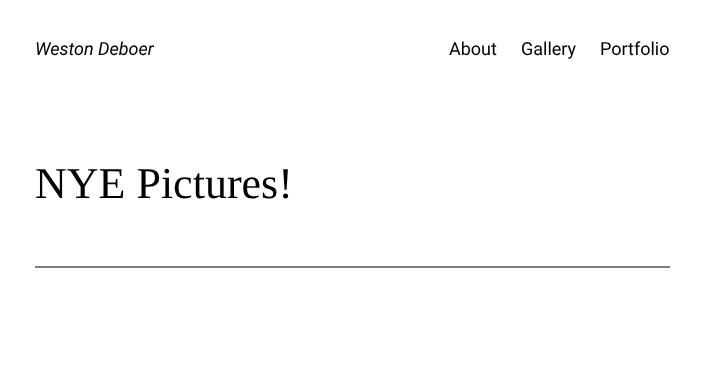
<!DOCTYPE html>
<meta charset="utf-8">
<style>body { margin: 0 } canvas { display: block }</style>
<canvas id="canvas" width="705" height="378"></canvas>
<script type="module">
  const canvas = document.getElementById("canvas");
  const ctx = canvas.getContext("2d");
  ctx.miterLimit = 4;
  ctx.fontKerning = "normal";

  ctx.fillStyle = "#ffffff";
  ctx.fillRect(0, 0, 705, 378);
  ctx.font = "italic 18px Roboto";
  ctx.fillStyle = "#000000";
  ctx.fillText("Weston Deboer", 35, 55);
  ctx.font = "18px Roboto";
  ctx.fillText("About", 449, 55);
  ctx.fillText("Gallery", 521, 55);
  ctx.fillText("Portfolio", 600, 55);
  ctx.font = "44px Liberation Serif";
  ctx.fillText("NYE Pictures!", 35, 198);
  ctx.fillStyle = "#808080";
  ctx.fillRect(35, 266, 635, 2);
</script>
